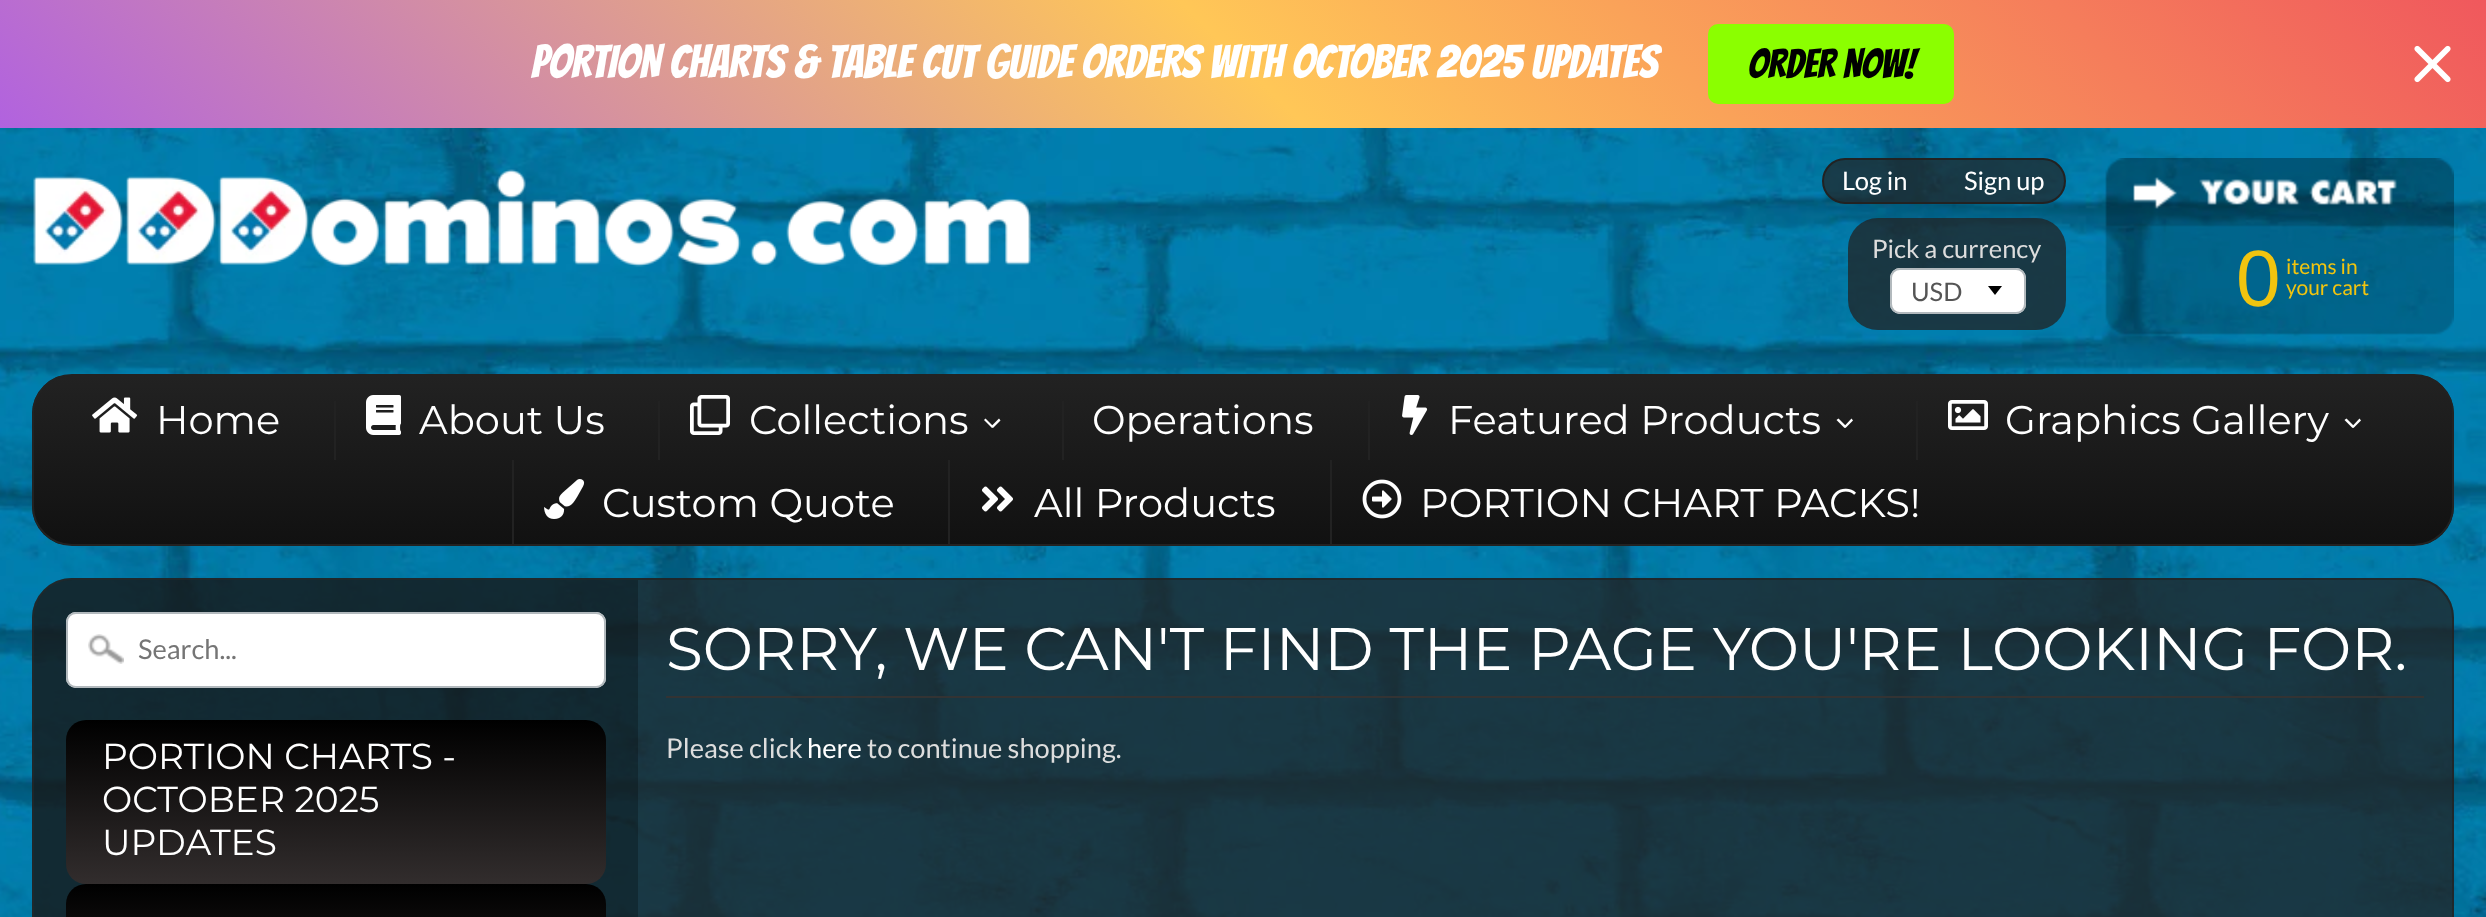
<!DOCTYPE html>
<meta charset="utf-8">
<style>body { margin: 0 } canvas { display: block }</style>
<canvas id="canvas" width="2486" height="917"></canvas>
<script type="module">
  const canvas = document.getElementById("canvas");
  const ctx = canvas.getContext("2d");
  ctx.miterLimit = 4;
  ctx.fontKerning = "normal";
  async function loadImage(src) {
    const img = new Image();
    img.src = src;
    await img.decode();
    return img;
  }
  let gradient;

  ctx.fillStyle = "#ffffff";
  ctx.fillRect(0, 0, 2486, 917);
  ctx.drawImage(await loadImage("img1.png"), 0, 128, 2486, 789);
  gradient = ctx.createLinearGradient(590, 718, 1897, -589);
  gradient.addColorStop(0, "#b162df");
  gradient.addColorStop(0.5, "#ffc757");
  gradient.addColorStop(1, "#f0585d");
  ctx.fillStyle = gradient;
  ctx.fillRect(0, 0, 2486, 128);
  ctx.font = "46px Bangers";
  ctx.fillStyle = "#ffffff";
  ctx.fillText("PORTION CHARTS & TABLE CUT GUIDE ORDERS WITH OCTOBER 2025 UPDATES", 531, 78);
  ctx.fillStyle = "#8bff00";
  ctx.beginPath();
  ctx.roundRect(1708, 24, 246, 80, 10);
  ctx.fill();
  ctx.font = "40.25px Bangers";
  ctx.fillStyle = "#000000";
  ctx.fillText("ORDER NOW!", 1748, 78);
  ctx.drawImage(await loadImage("img2.png"), 2414, 45, 37, 38);
  ctx.drawImage(await loadImage("img3.png"), 33, 169, 998, 98);
  ctx.fillStyle = "rgba(34, 34, 34, 0.7)";
  ctx.beginPath();
  ctx.roundRect(1823, 159, 242, 44, 22);
  ctx.fill();
  ctx.strokeStyle = "#222222";
  ctx.lineWidth = 2;
  ctx.stroke();
  ctx.font = "25.5px Lato";
  ctx.fillStyle = "#ffffff";
  ctx.fillText("Log in", 1842, 190);
  ctx.fillText("Sign up", 1964, 190);
  ctx.fillStyle = "rgba(34, 34, 34, 0.75)";
  ctx.beginPath();
  ctx.roundRect(1848, 218, 218, 112, 30);
  ctx.fill();
  ctx.fillStyle = "#dddddd";
  ctx.fillText("Pick a currency", 1872, 258);
  ctx.fillStyle = "#ffffff";
  ctx.beginPath();
  ctx.roundRect(1890, 268, 136, 46, 10);
  ctx.fill();
  ctx.fillStyle = "#000000";
  ctx.beginPath();
  ctx.moveTo(1988, 286);
  ctx.lineTo(1995, 295);
  ctx.lineTo(2002, 286);
  ctx.closePath();
  ctx.fill();
  ctx.beginPath();
  ctx.roundRect(1891, 269, 134, 44, 9);
  ctx.strokeStyle = "#b2b9bd";
  ctx.stroke();
  ctx.fillStyle = "#555555";
  ctx.fillText("USD", 1911, 301);
  ctx.drawImage(await loadImage("img4.png"), 2105, 158, 349, 177);
  ctx.font = "80px Liberation Sans";
  ctx.fillStyle = "#f1c40f";
  ctx.fillText("0", 2236, 306);
  ctx.font = "21px Lato";
  ctx.fillText("items in", 2286, 274);
  ctx.fillText("your cart", 2286, 295);
  ctx.save();
  ctx.beginPath();
  ctx.roundRect(32, 374, 2422, 172, 40);
  ctx.clip();
  gradient = ctx.createLinearGradient(1243, 376, 1243, 544);
  gradient.addColorStop(0, "#222222");
  gradient.addColorStop(1, "#111111");
  ctx.fillStyle = gradient;
  ctx.fillRect(32, 376, 2422, 168);
  ctx.restore();
  ctx.beginPath();
  ctx.roundRect(33, 375, 2420, 170, 39);
  ctx.strokeStyle = "#222222";
  ctx.stroke();
  ctx.drawImage(await loadImage("img5.png"), 92, 397, 46, 36);
  ctx.font = "40px Montserrat";
  ctx.fillStyle = "#ffffff";
  ctx.fillText("Home", 156, 434);
  ctx.fillStyle = "#222222";
  ctx.fillRect(334, 401, 2, 59);
  ctx.drawImage(await loadImage("img6.png"), 366, 395, 35, 40);
  ctx.fillStyle = "#ffffff";
  ctx.fillText("About Us", 419, 434);
  ctx.fillStyle = "#222222";
  ctx.fillRect(658, 401, 2, 59);
  ctx.drawImage(await loadImage("img7.png"), 690, 395, 40, 40);
  ctx.fillStyle = "#ffffff";
  ctx.fillText("Collections", 749, 434);
  ctx.beginPath();
  ctx.moveTo(999, 418.5);
  ctx.lineTo(1000.5, 420.5);
  ctx.lineTo(993, 428);
  ctx.lineTo(991, 426.5);
  ctx.closePath();
  ctx.fill();
  ctx.beginPath();
  ctx.moveTo(985.5, 418.5);
  ctx.lineTo(993.5, 426.5);
  ctx.lineTo(992, 428);
  ctx.lineTo(984, 420);
  ctx.closePath();
  ctx.fill();
  ctx.fillStyle = "#222222";
  ctx.fillRect(1062, 401, 2, 59);
  ctx.fillStyle = "#ffffff";
  ctx.fillText("Operations", 1092, 434);
  ctx.fillStyle = "#222222";
  ctx.fillRect(1368, 401, 2, 59);
  ctx.drawImage(await loadImage("img8.png"), 1402, 395, 26, 40);
  ctx.fillStyle = "#ffffff";
  ctx.fillText("Featured Products", 1448, 434);
  ctx.beginPath();
  ctx.moveTo(1851.5, 418.5);
  ctx.lineTo(1853, 420.5);
  ctx.lineTo(1845.5, 428);
  ctx.lineTo(1844, 426.5);
  ctx.closePath();
  ctx.fill();
  ctx.beginPath();
  ctx.moveTo(1838.5, 418.5);
  ctx.lineTo(1846.5, 426.5);
  ctx.lineTo(1844.5, 428);
  ctx.lineTo(1836.5, 420);
  ctx.closePath();
  ctx.fill();
  ctx.fillStyle = "#222222";
  ctx.fillRect(1916, 401, 2, 59);
  ctx.drawImage(await loadImage("img9.png"), 1948, 400, 40, 30);
  ctx.fillStyle = "#ffffff";
  ctx.fillText("Graphics Gallery", 2005, 434);
  ctx.beginPath();
  ctx.moveTo(2359.5, 418.5);
  ctx.lineTo(2361, 420.5);
  ctx.lineTo(2353.5, 428);
  ctx.lineTo(2352, 426.5);
  ctx.closePath();
  ctx.fill();
  ctx.beginPath();
  ctx.moveTo(2346.5, 418.5);
  ctx.lineTo(2354.5, 426.5);
  ctx.lineTo(2352.5, 428);
  ctx.lineTo(2344.5, 420);
  ctx.closePath();
  ctx.fill();
  ctx.fillStyle = "#222222";
  ctx.fillRect(512, 460, 2, 84);
  ctx.drawImage(await loadImage("img10.png"), 544, 479, 41, 40);
  ctx.fillStyle = "#ffffff";
  ctx.fillText("Custom Quote", 602, 517);
  ctx.fillStyle = "#222222";
  ctx.fillRect(948, 460, 2, 84);
  ctx.drawImage(await loadImage("img11.png"), 982, 486, 31, 26);
  ctx.fillStyle = "#ffffff";
  ctx.fillText("All Products", 1034, 517);
  ctx.fillStyle = "#222222";
  ctx.fillRect(1330, 460, 2, 84);
  ctx.drawImage(await loadImage("img12.png"), 1362, 479, 40, 40);
  ctx.fillStyle = "#ffffff";
  ctx.fillText("PORTION CHART PACKS!", 1420, 517);
  ctx.fillStyle = "rgba(34, 34, 34, 0.75)";
  ctx.beginPath();
  ctx.roundRect(32, 578, 2422, 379, 40);
  ctx.fill();
  ctx.beginPath();
  ctx.roundRect(33, 579, 2420, 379, 39);
  ctx.strokeStyle = "rgba(34, 34, 34, 0.7)";
  ctx.stroke();
  ctx.fillStyle = "rgba(0, 0, 0, 0.25)";
  ctx.beginPath();
  ctx.moveTo(72, 580);
  ctx.lineTo(638, 580);
  ctx.lineTo(638, 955);
  ctx.lineTo(72, 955);
  ctx.bezierCurveTo(51, 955, 34, 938, 34, 917);
  ctx.lineTo(34, 618);
  ctx.bezierCurveTo(34, 597, 51, 580, 72, 580);
  ctx.closePath();
  ctx.fill();
  ctx.fillStyle = "#ffffff";
  ctx.beginPath();
  ctx.roundRect(66, 612, 540, 76, 10);
  ctx.fill();
  ctx.drawImage(await loadImage("img13.png"), 88, 634, 36, 30);
  ctx.beginPath();
  ctx.roundRect(67, 613, 538, 74, 9);
  ctx.strokeStyle = "#b2b9bd";
  ctx.stroke();
  ctx.font = "27.25px Lato";
  ctx.fillStyle = "#757575";
  ctx.fillText("Search...", 138, 659);
  gradient = ctx.createLinearGradient(336, 720, 336, 884);
  gradient.addColorStop(0, "#000000");
  gradient.addColorStop(1, "#322d2d");
  ctx.fillStyle = gradient;
  ctx.beginPath();
  ctx.roundRect(66, 720, 540, 164, 20);
  ctx.fill();
  ctx.font = "36px Montserrat";
  ctx.fillStyle = "#ffffff";
  ctx.fillText("PORTION CHARTS -", 102, 769);
  ctx.fillText("OCTOBER 2025", 102, 812);
  ctx.fillText("UPDATES", 102, 855);
  gradient = ctx.createLinearGradient(336, 884, 336, 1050);
  gradient.addColorStop(0, "#000000");
  gradient.addColorStop(1, "#322d2d");
  ctx.fillStyle = gradient;
  ctx.beginPath();
  ctx.roundRect(66, 884, 540, 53, 20);
  ctx.fill();
  ctx.fillStyle = "#333333";
  ctx.fillRect(666, 696, 1758, 2);
  ctx.font = "59.85px Montserrat";
  ctx.fillStyle = "#ffffff";
  ctx.fillText("SORRY, WE CAN'T FIND THE PAGE YOU'RE LOOKING FOR.", 666, 670);
  ctx.font = "27.25px Lato";
  ctx.fillStyle = "#dddddd";
  ctx.fillText("Please click", 666, 758);
  ctx.fillStyle = "#ffffff";
  ctx.fillText("here", 807, 758);
  ctx.fillStyle = "#dddddd";
  ctx.fillText("to continue shopping.", 867, 758);
</script>
